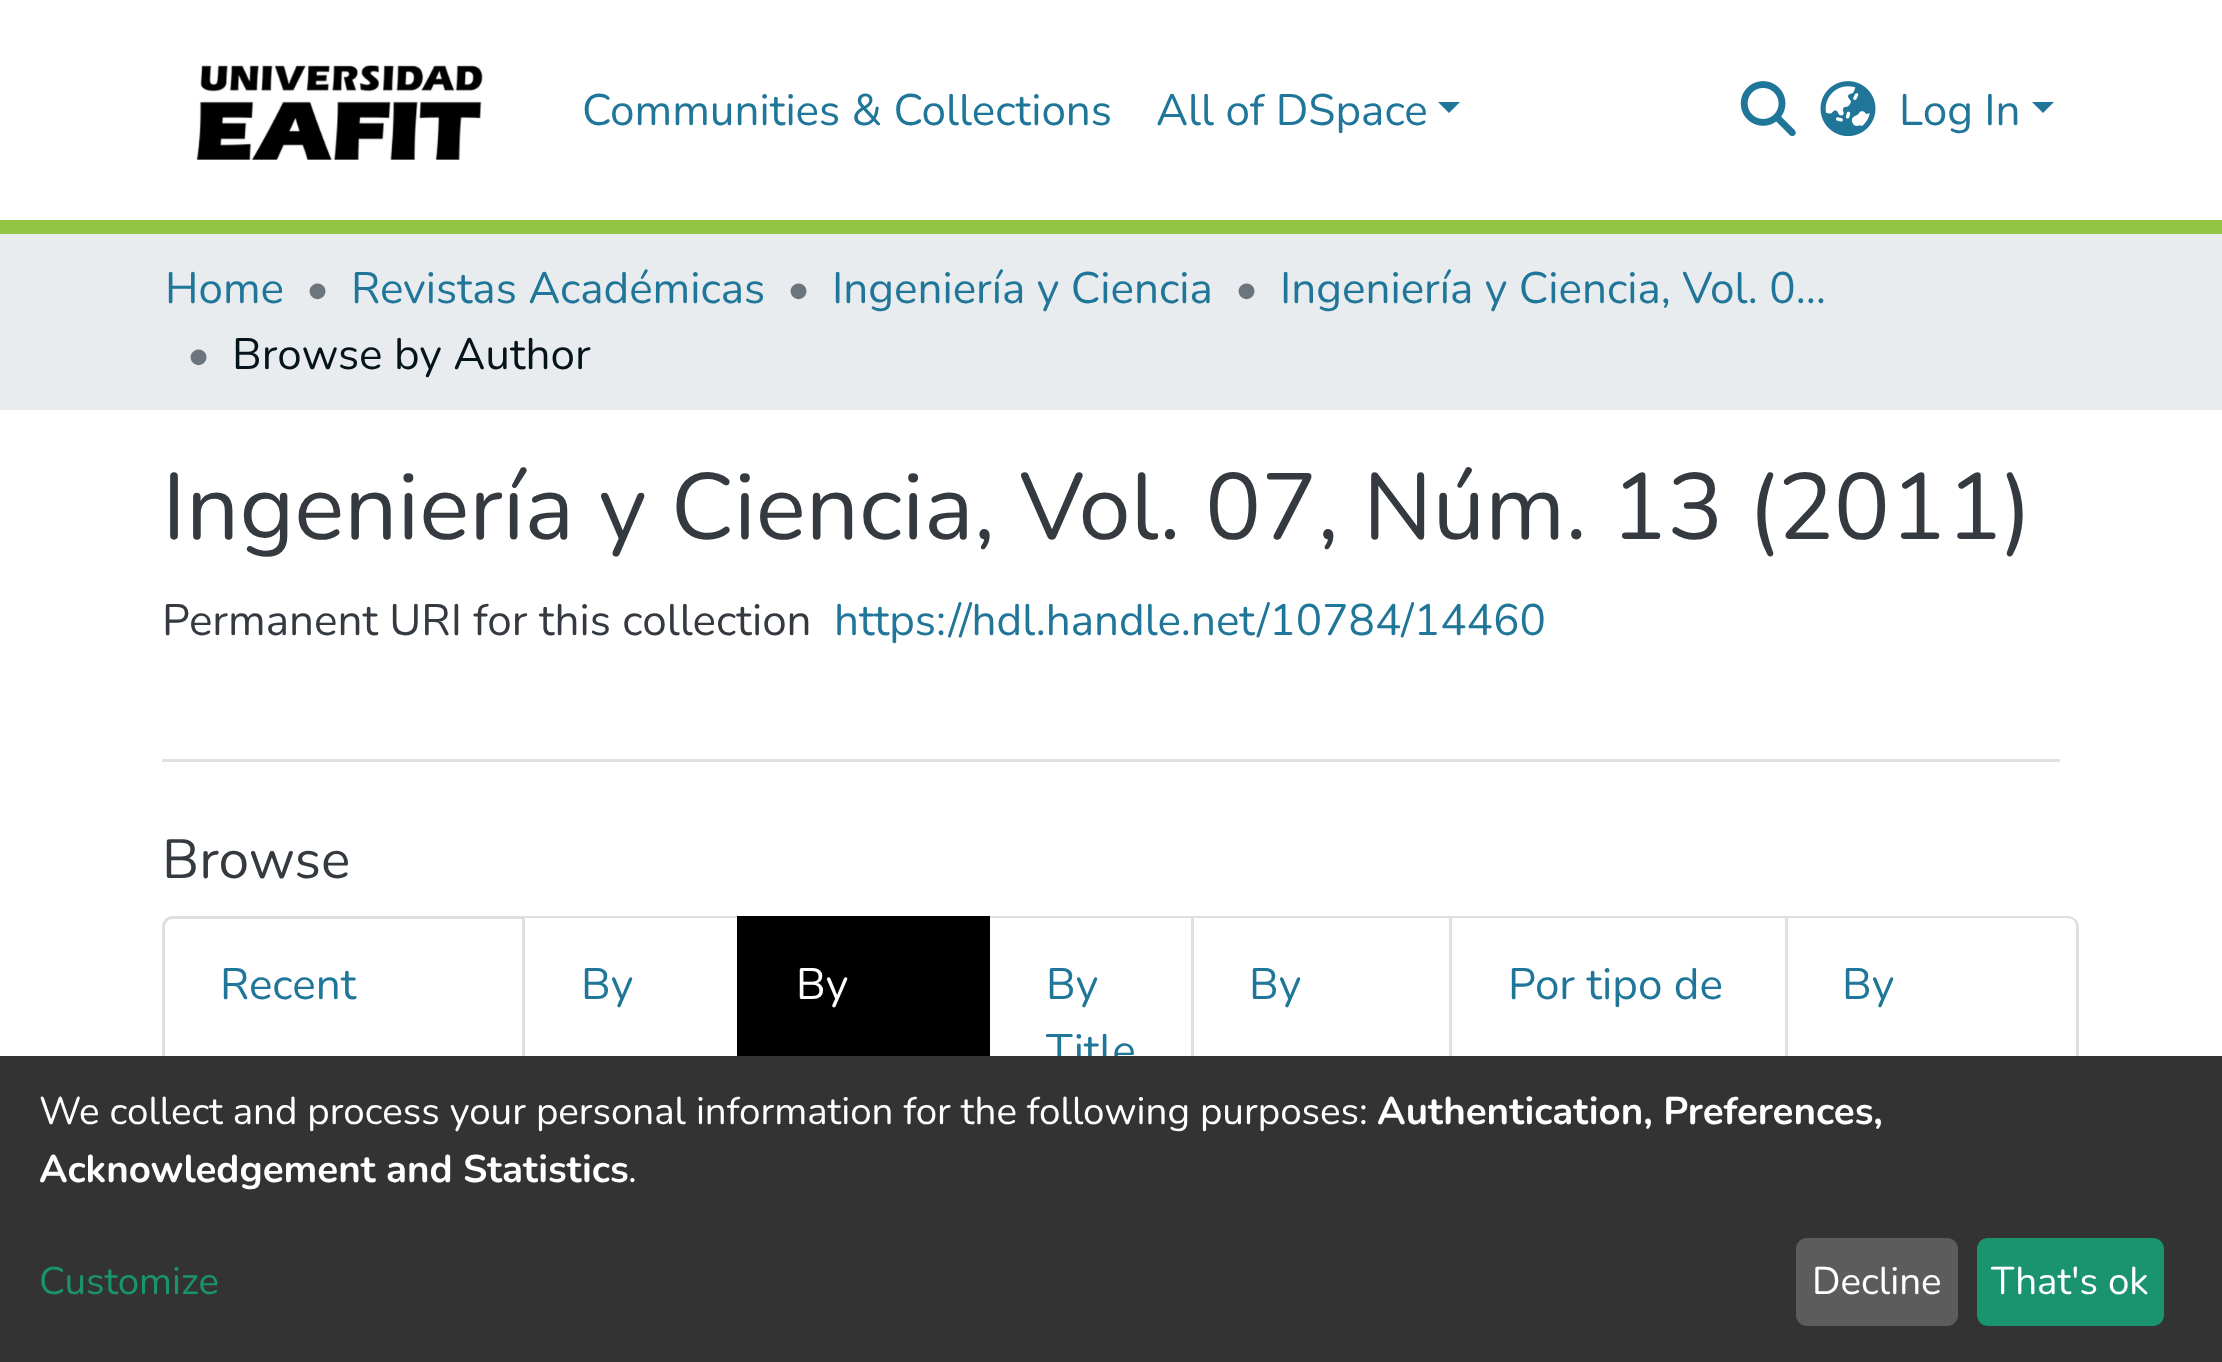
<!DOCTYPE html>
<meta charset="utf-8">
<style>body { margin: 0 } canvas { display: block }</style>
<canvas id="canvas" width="2222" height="1362"></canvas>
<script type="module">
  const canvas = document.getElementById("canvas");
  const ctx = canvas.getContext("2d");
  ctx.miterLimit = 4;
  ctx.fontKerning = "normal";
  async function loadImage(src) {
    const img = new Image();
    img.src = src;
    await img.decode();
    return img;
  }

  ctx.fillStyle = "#ffffff";
  ctx.fillRect(0, 0, 2222, 1362);
  ctx.fillStyle = "#92c642";
  ctx.fillRect(0, 220, 2222, 14);
  ctx.drawImage(await loadImage("img1.png"), 196, 65, 287, 95);
  ctx.font = "44px Nunito";
  ctx.fillStyle = "#207698";
  ctx.fillText("Communities & Collections", 582, 125);
  ctx.fillText("All of DSpace", 1156, 125);
  ctx.beginPath();
  ctx.moveTo(1438, 102);
  ctx.lineTo(1460, 102);
  ctx.lineTo(1449, 113);
  ctx.closePath();
  ctx.fill();
  ctx.drawImage(await loadImage("img2.png"), 1740, 81, 56, 56);
  ctx.drawImage(await loadImage("img3.png"), 1820, 81, 56, 56);
  ctx.fillText("Log In", 1899, 125);
  ctx.beginPath();
  ctx.moveTo(2032, 102);
  ctx.lineTo(2054, 102);
  ctx.lineTo(2043, 113);
  ctx.closePath();
  ctx.fill();
  ctx.fillStyle = "#e9ecef";
  ctx.fillRect(0, 234, 2222, 176);
  ctx.fillStyle = "#207698";
  ctx.fillText("Home", 165, 303);
  ctx.fillStyle = "#6c757d";
  ctx.fillText("•", 306, 303);
  ctx.fillStyle = "#207698";
  ctx.fillText("Revistas Académicas", 351, 303);
  ctx.fillStyle = "#6c757d";
  ctx.fillText("•", 787, 303);
  ctx.fillStyle = "#207698";
  ctx.fillText("Ingeniería y Ciencia", 832, 303);
  ctx.fillStyle = "#6c757d";
  ctx.fillText("•", 1235, 303);
  ctx.fillStyle = "#207698";
  ctx.fillText("Ingeniería y Ciencia, Vol. 0…", 1280, 303);
  ctx.fillStyle = "#6c757d";
  ctx.fillText("•", 187, 369);
  ctx.fillStyle = "#05141a";
  ctx.fillText("Browse by Author", 232, 369);
  ctx.fillStyle = "#dee2e6";
  ctx.fillRect(162, 759, 1898, 3);
  ctx.font = "93.8px Nunito";
  ctx.fillStyle = "#343a40";
  ctx.fillText("Ingeniería y Ciencia, Vol. 07, Núm. 13 (2011)", 162, 539);
  ctx.font = "44px Nunito";
  ctx.fillText("Permanent URI for this collection", 162, 635);
  ctx.fillStyle = "#207698";
  ctx.fillText("https://hdl.handle.net/10784/14460", 834, 635);
  ctx.font = "55px Nunito";
  ctx.fillStyle = "#343a40";
  ctx.fillText("Browse", 162, 878);
  ctx.beginPath();
  ctx.roundRect(163.5, 917.5, 360, 266, [9.5, 0, 0, 9.5]);
  ctx.strokeStyle = "#dfdfdf";
  ctx.lineWidth = 3;
  ctx.stroke();
  ctx.font = "44px Nunito";
  ctx.fillStyle = "#207698";
  ctx.fillText("Recent", 220, 999);
  ctx.fillStyle = "#dfdfdf";
  ctx.beginPath();
  ctx.moveTo(525, 916);
  ctx.lineTo(740, 916);
  ctx.lineTo(737, 918);
  ctx.lineTo(525, 918);
  ctx.closePath();
  ctx.fill();
  ctx.fillStyle = "#207698";
  ctx.fillText("By", 581, 999);
  ctx.fillStyle = "#000000";
  ctx.fillRect(737, 916, 253, 140);
  ctx.fillStyle = "#ffffff";
  ctx.fillText("By", 796, 999);
  ctx.fillStyle = "#dfdfdf";
  ctx.beginPath();
  ctx.moveTo(990, 916);
  ctx.lineTo(1194, 916);
  ctx.lineTo(1191, 918);
  ctx.lineTo(990, 918);
  ctx.closePath();
  ctx.fill();
  ctx.fillStyle = "rgba(0, 0, 0, 0.12)";
  ctx.beginPath();
  ctx.moveTo(1194, 916);
  ctx.lineTo(1194, 1185);
  ctx.lineTo(1191, 1182);
  ctx.lineTo(1191, 918);
  ctx.closePath();
  ctx.fill();
  ctx.fillStyle = "#207698";
  ctx.fillText("By", 1046, 999);
  ctx.fillText("Title", 1046, 1065);
  ctx.fillStyle = "#dfdfdf";
  ctx.beginPath();
  ctx.moveTo(1194, 916);
  ctx.lineTo(1452, 916);
  ctx.lineTo(1449, 918);
  ctx.lineTo(1194, 918);
  ctx.closePath();
  ctx.fill();
  ctx.fillStyle = "rgba(0, 0, 0, 0.12)";
  ctx.beginPath();
  ctx.moveTo(1452, 916);
  ctx.lineTo(1452, 1185);
  ctx.lineTo(1449, 1182);
  ctx.lineTo(1449, 918);
  ctx.closePath();
  ctx.fill();
  ctx.fillStyle = "#207698";
  ctx.fillText("By", 1249, 999);
  ctx.fillStyle = "#dfdfdf";
  ctx.beginPath();
  ctx.moveTo(1452, 916);
  ctx.lineTo(1788, 916);
  ctx.lineTo(1785, 918);
  ctx.lineTo(1452, 918);
  ctx.closePath();
  ctx.fill();
  ctx.fillStyle = "rgba(0, 0, 0, 0.12)";
  ctx.beginPath();
  ctx.moveTo(1788, 916);
  ctx.lineTo(1788, 1185);
  ctx.lineTo(1785, 1182);
  ctx.lineTo(1785, 918);
  ctx.closePath();
  ctx.fill();
  ctx.fillStyle = "#207698";
  ctx.fillText("Por tipo de", 1508, 999);
  ctx.fillStyle = "#dfdfdf";
  ctx.beginPath();
  ctx.moveTo(1788, 916);
  ctx.lineTo(2068, 916);
  ctx.bezierCurveTo(2074, 916, 2079, 921, 2079, 927);
  ctx.lineTo(2079, 1174);
  ctx.bezierCurveTo(2079, 1180, 2074, 1185, 2068, 1185);
  ctx.lineTo(1788, 1185);
  ctx.closePath();
  ctx.moveTo(1788, 918);
  ctx.lineTo(2068, 918);
  ctx.bezierCurveTo(2073, 918, 2076, 922, 2076, 927);
  ctx.lineTo(2076, 1174);
  ctx.bezierCurveTo(2076, 1179, 2073, 1182, 2068, 1182);
  ctx.lineTo(1788, 1182);
  ctx.closePath();
  ctx.fill("evenodd");
  ctx.fillStyle = "#207698";
  ctx.fillText("By", 1842, 999);
  ctx.fillStyle = "#333333";
  ctx.fillRect(0, 1056, 2222, 306);
  ctx.font = "38.5px Nunito";
  ctx.fillStyle = "#ffffff";
  ctx.fillText("We collect and process your personal information for the following purposes:", 39, 1124);
  ctx.font = "bold 38.5px Nunito";
  ctx.fillText("Authentication, Preferences,", 1377, 1124);
  ctx.fillText("Acknowledgement and Statistics", 39, 1182);
  ctx.font = "38.5px Nunito";
  ctx.fillText(".", 628, 1182);
  ctx.fillStyle = "#1a936f";
  ctx.fillText("Customize", 39, 1294);
  ctx.fillStyle = "#5c5c5c";
  ctx.beginPath();
  ctx.roundRect(1796, 1238, 162, 88, 11);
  ctx.fill();
  ctx.fillStyle = "#ffffff";
  ctx.fillText("Decline", 1812, 1294);
  ctx.fillStyle = "#1a936f";
  ctx.beginPath();
  ctx.roundRect(1977, 1238, 187, 88, 11);
  ctx.fill();
  ctx.fillStyle = "#ffffff";
  ctx.fillText("That's ok", 1991, 1294);
</script>
